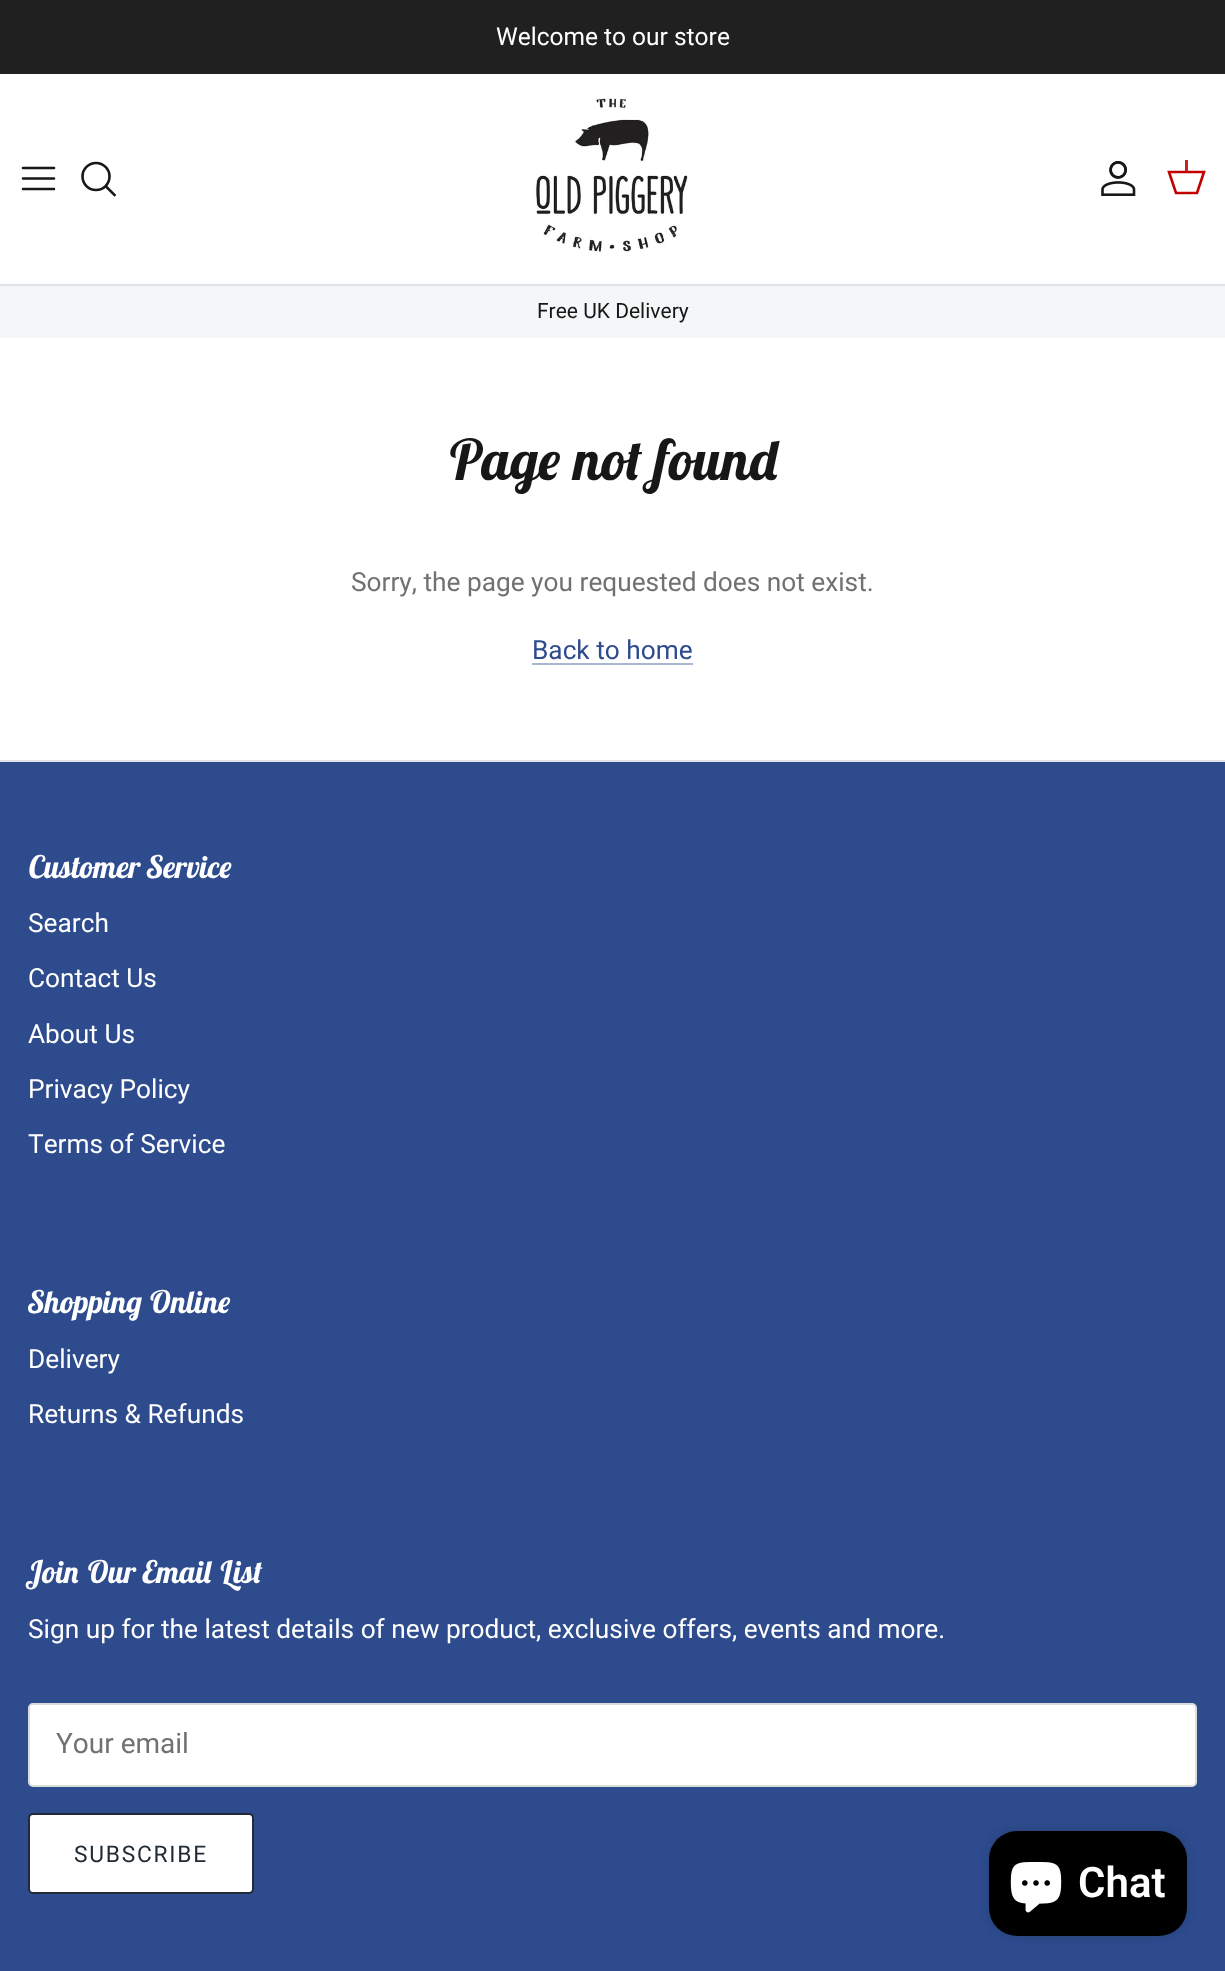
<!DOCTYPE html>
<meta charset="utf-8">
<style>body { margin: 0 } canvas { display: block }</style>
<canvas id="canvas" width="1225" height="1971"></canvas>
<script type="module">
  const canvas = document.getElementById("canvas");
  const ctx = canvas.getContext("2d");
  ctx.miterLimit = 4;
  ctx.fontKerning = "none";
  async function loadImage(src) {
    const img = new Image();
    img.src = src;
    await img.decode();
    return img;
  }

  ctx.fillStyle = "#ffffff";
  ctx.fillRect(0, 0, 1225, 1971);
  ctx.fillStyle = "#202020";
  ctx.fillRect(0, 0, 1225, 74);
  ctx.font = "24.5px Roboto";
  ctx.fillStyle = "#ffffff";
  ctx.fillText("Welcome to our store", 496, 45);
  ctx.fillStyle = "#dfe3e8";
  ctx.fillRect(0, 284, 1225, 2);
  ctx.beginPath();
  ctx.moveTo(23, 178.5);
  ctx.lineTo(54, 178.5);
  ctx.moveTo(23, 168);
  ctx.lineTo(54, 168);
  ctx.moveTo(23, 189);
  ctx.lineTo(54, 189);
  ctx.strokeStyle = "#171717";
  ctx.lineWidth = 2.6;
  ctx.lineCap = "round";
  ctx.lineJoin = "round";
  ctx.stroke();
  ctx.beginPath();
  ctx.arc(96, 176.5, 13.5, 0, Math.PI * 2);
  ctx.stroke();
  ctx.beginPath();
  ctx.moveTo(106.5, 187);
  ctx.lineTo(114.5, 195);
  ctx.lineCap = "square";
  ctx.lineJoin = "miter";
  ctx.stroke();
  ctx.drawImage(await loadImage("img1.png"), 535, 98, 153, 154);
  ctx.drawImage(await loadImage("img2.png"), 1101, 161, 35, 35);
  ctx.beginPath();
  ctx.moveTo(1169, 172);
  ctx.lineTo(1204, 172);
  ctx.lineTo(1197, 193);
  ctx.lineTo(1176, 193);
  ctx.closePath();
  ctx.strokeStyle = "#c20000";
  ctx.lineCap = "butt";
  ctx.stroke();
  ctx.fillStyle = "rgba(194, 0, 0, 0.87)";
  ctx.fillRect(1185, 160, 3, 13);
  ctx.fillStyle = "#f4f6f8";
  ctx.fillRect(0, 286, 1225, 52);
  ctx.font = "21px Roboto";
  ctx.fillStyle = "#171717";
  ctx.fillText("Free UK Delivery", 537, 318);
  ctx.font = "italic bold 56px Lobster Two";
  ctx.fillText("Page not found", 447, 480);
  ctx.font = "26.25px Roboto";
  ctx.fillStyle = "#707173";
  ctx.fillText("Sorry, the page you requested does not exist.", 351, 591);
  ctx.fillStyle = "#2d4b8d";
  ctx.fillText("Back to home", 532, 659);
  ctx.fillStyle = "#abb7d1";
  ctx.fillRect(532, 663, 161, 2);
  ctx.fillStyle = "#2d4b8d";
  ctx.fillRect(0, 762, 1225, 1209);
  ctx.fillStyle = "#dfe3e8";
  ctx.fillRect(0, 760, 1225, 2);
  ctx.font = "italic bold 31px Lobster Two";
  ctx.fillStyle = "#ffffff";
  ctx.fillText("Customer Service", 28, 878);
  ctx.font = "26.25px Roboto";
  ctx.fillText("Search", 28, 932);
  ctx.fillText("Contact Us", 28, 987);
  ctx.fillText("About Us", 28, 1043);
  ctx.fillText("Privacy Policy", 28, 1098);
  ctx.fillText("Terms of Service", 28, 1153);
  ctx.font = "italic bold 31px Lobster Two";
  ctx.fillText("Shopping Online", 28, 1313);
  ctx.font = "26.25px Roboto";
  ctx.fillText("Delivery", 28, 1368);
  ctx.fillText("Returns & Refunds", 28, 1423);
  ctx.font = "italic bold 31px Lobster Two";
  ctx.fillText("Join Our Email List", 28, 1583);
  ctx.font = "26.25px Roboto";
  ctx.fillText("Sign up for the latest details of new product, exclusive offers, events and more.", 28, 1638);
  ctx.beginPath();
  ctx.roundRect(29, 1704, 1167, 82, 4);
  ctx.fill();
  ctx.strokeStyle = "#dbdcdc";
  ctx.lineWidth = 2;
  ctx.stroke();
  ctx.font = "28px Roboto";
  ctx.fillStyle = "#707173";
  ctx.fillText("Your email", 56, 1753);
  ctx.fillStyle = "#ffffff";
  ctx.beginPath();
  ctx.roundRect(29, 1814, 224, 79, 4);
  ctx.fill();
  ctx.strokeStyle = "#212b36";
  ctx.stroke();
  ctx.letterSpacing = "1.75px";
  ctx.font = "22.75px Roboto";
  ctx.fillStyle = "#212b36";
  ctx.fillText("SUBSCRIBE", 74, 1862);
  ctx.fillStyle = "rgba(0, 0, 0, 0.15)";
  ctx.filter = "blur(4.5px)";
  ctx.beginPath();
  ctx.roundRect(989, 1831, 198, 105, 28);
  ctx.fill();
  ctx.filter = "none";
  ctx.fillStyle = "#000000";
  ctx.beginPath();
  ctx.roundRect(989, 1831, 198, 105, 28);
  ctx.fill();
  ctx.drawImage(await loadImage("img3.png"), 1010, 1862, 52, 51);
  ctx.letterSpacing = "0px";
  ctx.font = "600 42px Roboto";
  ctx.fillStyle = "#ffffff";
  ctx.fillText("Chat", 1078, 1897);
</script>
